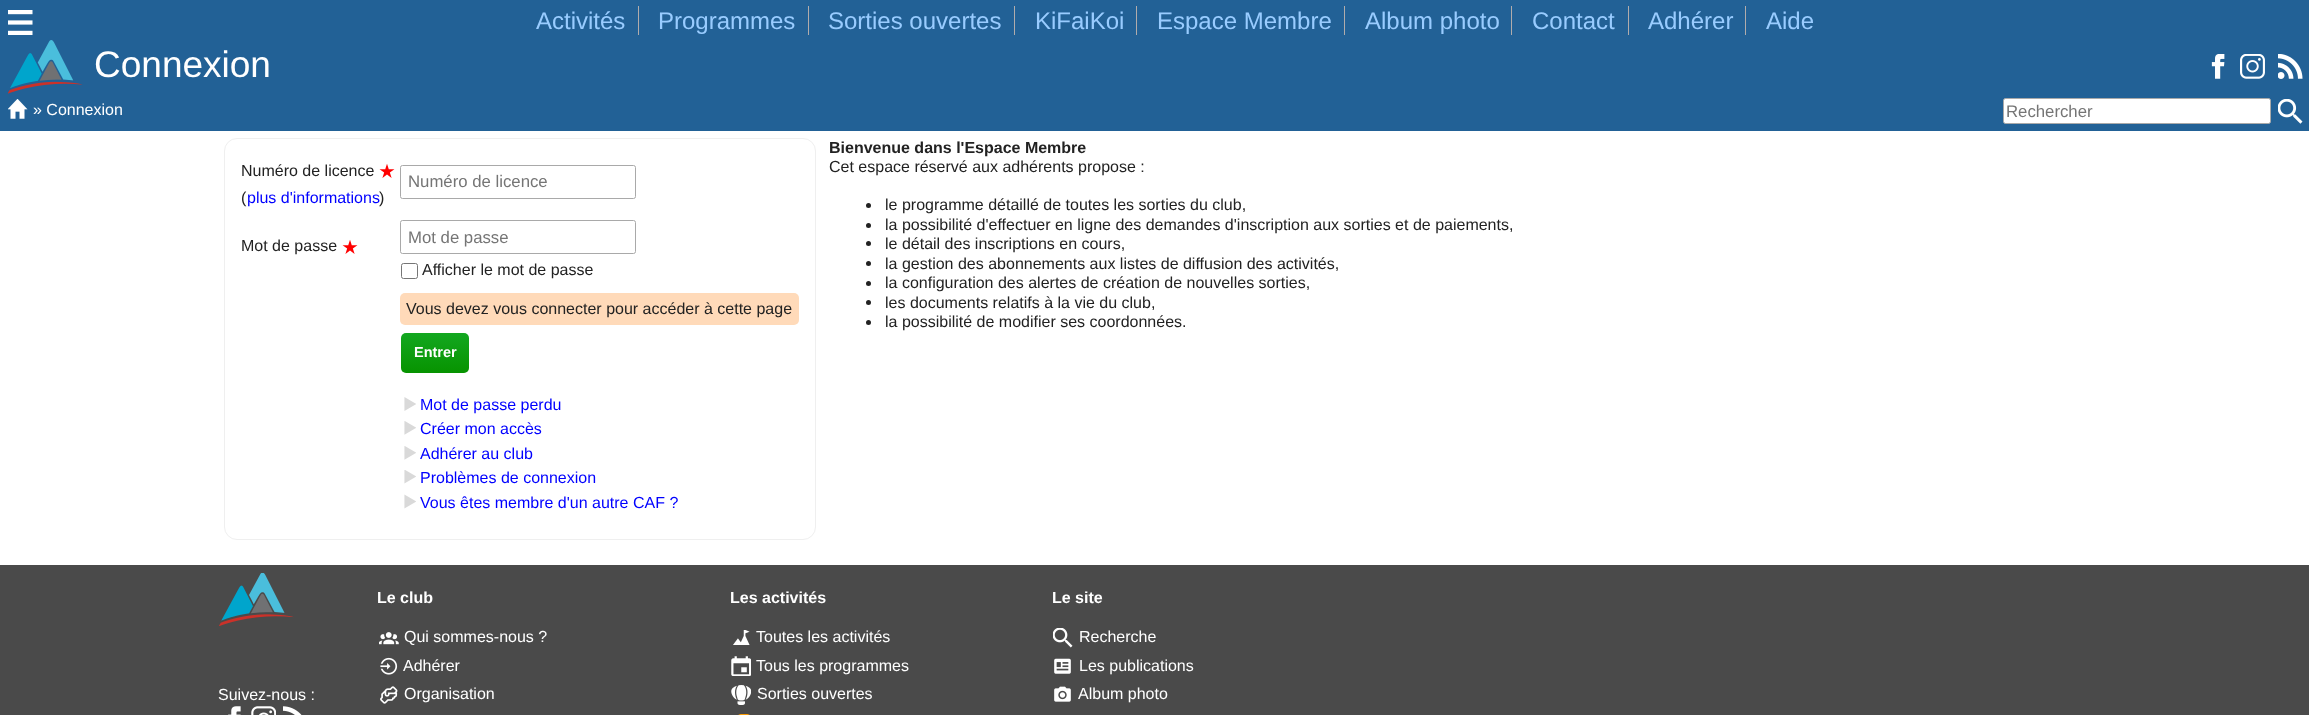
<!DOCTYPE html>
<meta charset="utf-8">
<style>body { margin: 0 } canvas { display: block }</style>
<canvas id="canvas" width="2309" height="715"></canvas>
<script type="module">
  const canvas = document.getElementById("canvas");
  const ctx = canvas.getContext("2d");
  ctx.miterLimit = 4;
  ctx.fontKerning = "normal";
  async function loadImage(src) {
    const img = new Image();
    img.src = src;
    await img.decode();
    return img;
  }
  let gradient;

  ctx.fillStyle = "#ffffff";
  ctx.fillRect(0, 0, 2309, 715);
  ctx.fillStyle = "#226196";
  ctx.fillRect(0, 0, 2309, 131);
  ctx.drawImage(await loadImage("img1.png"), 8, 10, 25, 25);
  ctx.fillStyle = "#b1acac";
  ctx.fillRect(638, 6, 1, 29);
  ctx.font = "24px Liberation Sans";
  ctx.fillStyle = "#99ccff";
  ctx.fillText("Activités", 536, 29);
  ctx.fillStyle = "#b1acac";
  ctx.fillRect(808, 6, 1, 29);
  ctx.fillStyle = "#99ccff";
  ctx.fillText("Programmes", 658, 29);
  ctx.fillStyle = "#b1acac";
  ctx.fillRect(1014, 6, 1, 29);
  ctx.fillStyle = "#99ccff";
  ctx.fillText("Sorties ouvertes", 828, 29);
  ctx.fillStyle = "#b1acac";
  ctx.fillRect(1136, 6, 1, 29);
  ctx.fillStyle = "#99ccff";
  ctx.fillText("KiFaiKoi", 1035, 29);
  ctx.fillStyle = "#b1acac";
  ctx.fillRect(1344, 6, 1, 29);
  ctx.fillStyle = "#99ccff";
  ctx.fillText("Espace Membre", 1157, 29);
  ctx.fillStyle = "#b1acac";
  ctx.fillRect(1511, 6, 1, 29);
  ctx.fillStyle = "#99ccff";
  ctx.fillText("Album photo", 1365, 29);
  ctx.fillStyle = "#b1acac";
  ctx.fillRect(1628, 6, 1, 29);
  ctx.fillStyle = "#99ccff";
  ctx.fillText("Contact", 1532, 29);
  ctx.fillStyle = "#b1acac";
  ctx.fillRect(1745, 6, 1, 29);
  ctx.fillStyle = "#99ccff";
  ctx.fillText("Adhérer", 1648, 29);
  ctx.fillText("Aide", 1766, 29);
  ctx.drawImage(await loadImage("img2.png"), 8, 40, 75, 54);
  ctx.font = "37px Liberation Sans";
  ctx.fillStyle = "#ffffff";
  ctx.fillText("Connexion", 94, 77);
  ctx.drawImage(await loadImage("img3.png"), 2211, 54, 14, 25);
  ctx.drawImage(await loadImage("img4.png"), 2240, 54, 25, 25);
  ctx.drawImage(await loadImage("img5.png"), 2278, 54, 25, 25);
  ctx.drawImage(await loadImage("img6.png"), 8, 99, 20, 20);
  ctx.font = "16px Liberation Sans";
  ctx.fillText("» Connexion", 33, 115);
  ctx.beginPath();
  ctx.roundRect(2003.5, 98.5, 267, 25, 2);
  ctx.fill();
  ctx.strokeStyle = "#a9a9a9";
  ctx.stroke();
  ctx.font = "16.75px Liberation Sans";
  ctx.fillStyle = "#757575";
  ctx.fillText("Rechercher", 2006, 117);
  ctx.drawImage(await loadImage("img7.png"), 2278, 99, 25, 25);
  ctx.beginPath();
  ctx.roundRect(224.5, 138.5, 591, 401, 12.5);
  ctx.strokeStyle = "#efefef";
  ctx.stroke();
  ctx.font = "16px Liberation Sans";
  ctx.fillStyle = "#222222";
  ctx.fillText("Numéro de licence", 241, 176);
  ctx.direction = "rtl";
  ctx.font = "bold 27px DejaVu Sans";
  ctx.fillStyle = "#ff0000";
  ctx.fillText("٭", 394, 180);
  ctx.direction = "ltr";
  ctx.font = "16px Liberation Sans";
  ctx.fillStyle = "#222222";
  ctx.fillText("(", 241, 203);
  ctx.fillStyle = "#0000ff";
  ctx.fillText("plus d'informations", 247, 203);
  ctx.fillStyle = "#222222";
  ctx.fillText(")", 379, 203);
  ctx.beginPath();
  ctx.roundRect(400.5, 165.5, 235, 33, 2);
  ctx.strokeStyle = "#a9a9a9";
  ctx.stroke();
  ctx.font = "16.75px Liberation Sans";
  ctx.fillStyle = "#757575";
  ctx.fillText("Numéro de licence", 408, 187);
  ctx.font = "16px Liberation Sans";
  ctx.fillStyle = "#222222";
  ctx.fillText("Mot de passe", 241, 251);
  ctx.direction = "rtl";
  ctx.font = "bold 27px DejaVu Sans";
  ctx.fillStyle = "#ff0000";
  ctx.fillText("٭", 357, 256);
  ctx.beginPath();
  ctx.roundRect(400.5, 220.5, 235, 33, 2);
  ctx.stroke();
  ctx.direction = "ltr";
  ctx.font = "16.75px Liberation Sans";
  ctx.fillStyle = "#757575";
  ctx.fillText("Mot de passe", 408, 243);
  ctx.beginPath();
  ctx.roundRect(401.5, 263.5, 16, 15, 2);
  ctx.strokeStyle = "#767676";
  ctx.stroke();
  ctx.font = "16px Liberation Sans";
  ctx.fillStyle = "#222222";
  ctx.fillText("Afficher le mot de passe", 422, 275);
  ctx.fillStyle = "#ffdab9";
  ctx.beginPath();
  ctx.roundRect(400, 293, 399, 32, 5);
  ctx.fill();
  ctx.fillStyle = "#222222";
  ctx.fillText("Vous devez vous connecter pour accéder à cette page", 406, 314);
  gradient = ctx.createLinearGradient(435, 333, 435, 373);
  gradient.addColorStop(0, "#13a720");
  gradient.addColorStop(1, "#079300");
  ctx.fillStyle = gradient;
  ctx.beginPath();
  ctx.roundRect(401, 333, 68, 40, 5);
  ctx.fill();
  ctx.font = "bold 14.5px Liberation Sans";
  ctx.fillStyle = "#ffffff";
  ctx.fillText("Entrer", 414, 357);
  ctx.drawImage(await loadImage("img8.png"), 404, 397, 12, 14);
  ctx.font = "16px Liberation Sans";
  ctx.fillStyle = "#0000ff";
  ctx.fillText("Mot de passe perdu", 420, 410);
  ctx.drawImage(await loadImage("img9.png"), 404, 421, 12, 14);
  ctx.fillText("Créer mon accès", 420, 434);
  ctx.drawImage(await loadImage("img9.png"), 404, 446, 12, 14);
  ctx.fillText("Adhérer au club", 420, 459);
  ctx.drawImage(await loadImage("img10.png"), 404, 470, 12, 14);
  ctx.fillText("Problèmes de connexion", 420, 483);
  ctx.drawImage(await loadImage("img11.png"), 404, 494, 12, 15);
  ctx.fillText("Vous êtes membre d'un autre CAF ?", 420, 508);
  ctx.font = "bold 16px Liberation Sans";
  ctx.fillStyle = "#222222";
  ctx.fillText("Bienvenue dans l'Espace Membre", 829, 153);
  ctx.font = "16px Liberation Sans";
  ctx.fillText("Cet espace réservé aux adhérents propose :", 829, 172);
  ctx.beginPath();
  ctx.arc(868.5, 205.5, 2.5, 0, Math.PI * 2);
  ctx.fill();
  ctx.fillText("le programme détaillé de toutes les sorties du club,", 885, 210);
  ctx.beginPath();
  ctx.arc(868.5, 225.5, 2.5, 0, Math.PI * 2);
  ctx.fill();
  ctx.fillText("la possibilité d'effectuer en ligne des demandes d'inscription aux sorties et de paiements,", 885, 230);
  ctx.beginPath();
  ctx.arc(868.5, 243.5, 2.5, 0, Math.PI * 2);
  ctx.fill();
  ctx.fillText("le détail des inscriptions en cours,", 885, 249);
  ctx.beginPath();
  ctx.arc(868.5, 263.5, 2.5, 0, Math.PI * 2);
  ctx.fill();
  ctx.fillText("la gestion des abonnements aux listes de diffusion des activités,", 885, 269);
  ctx.beginPath();
  ctx.arc(868.5, 283.5, 2.5, 0, Math.PI * 2);
  ctx.fill();
  ctx.fillText("la configuration des alertes de création de nouvelles sorties,", 885, 288);
  ctx.beginPath();
  ctx.arc(868.5, 302.5, 2.5, 0, Math.PI * 2);
  ctx.fill();
  ctx.fillText("les documents relatifs à la vie du club,", 885, 308);
  ctx.beginPath();
  ctx.arc(868.5, 322.5, 2.5, 0, Math.PI * 2);
  ctx.fill();
  ctx.fillText("la possibilité de modifier ses coordonnées.", 885, 327);
  ctx.fillStyle = "#4a4a4a";
  ctx.fillRect(0, 565, 2309, 150);
  ctx.drawImage(await loadImage("img12.png"), 219, 573, 75, 53);
  ctx.fillStyle = "#ffffff";
  ctx.fillText("Suivez-nous :", 218, 700);
  ctx.drawImage(await loadImage("img13.png"), 228, 706, 13, 9);
  ctx.drawImage(await loadImage("img14.png"), 251, 706, 25, 9);
  ctx.drawImage(await loadImage("img15.png"), 283, 706, 19, 9);
  ctx.font = "bold 16px Liberation Sans";
  ctx.fillText("Le club", 377, 603);
  ctx.drawImage(await loadImage("img16.png"), 379, 632, 20, 13);
  ctx.font = "16px Liberation Sans";
  ctx.fillText("Qui sommes-nous ?", 404, 642);
  ctx.drawImage(await loadImage("img17.png"), 380, 657, 18, 18);
  ctx.fillText("Adhérer", 403, 671);
  ctx.drawImage(await loadImage("img18.png"), 380, 686, 18, 18);
  ctx.fillText("Organisation", 404, 699);
  ctx.font = "bold 16px Liberation Sans";
  ctx.fillText("Les activités", 730, 603);
  ctx.drawImage(await loadImage("img19.png"), 733, 630, 17, 15);
  ctx.font = "16px Liberation Sans";
  ctx.fillText("Toutes les activités", 756, 642);
  ctx.drawImage(await loadImage("img20.png"), 731, 656, 20, 20);
  ctx.fillText("Tous les programmes", 756, 671);
  ctx.drawImage(await loadImage("img21.png"), 731, 685, 20, 20);
  ctx.fillText("Sorties ouvertes", 757, 699);
  ctx.drawImage(await loadImage("img22.png"), 738, 714, 12, 1);
  ctx.font = "bold 16px Liberation Sans";
  ctx.fillText("Le site", 1052, 603);
  ctx.drawImage(await loadImage("img23.png"), 1053, 628, 20, 20);
  ctx.font = "16px Liberation Sans";
  ctx.fillText("Recherche", 1079, 642);
  ctx.drawImage(await loadImage("img24.png"), 1054, 658, 17, 16);
  ctx.fillText("Les publications", 1079, 671);
  ctx.drawImage(await loadImage("img25.png"), 1054, 686, 17, 16);
  ctx.fillText("Album photo", 1078, 699);
</script>
